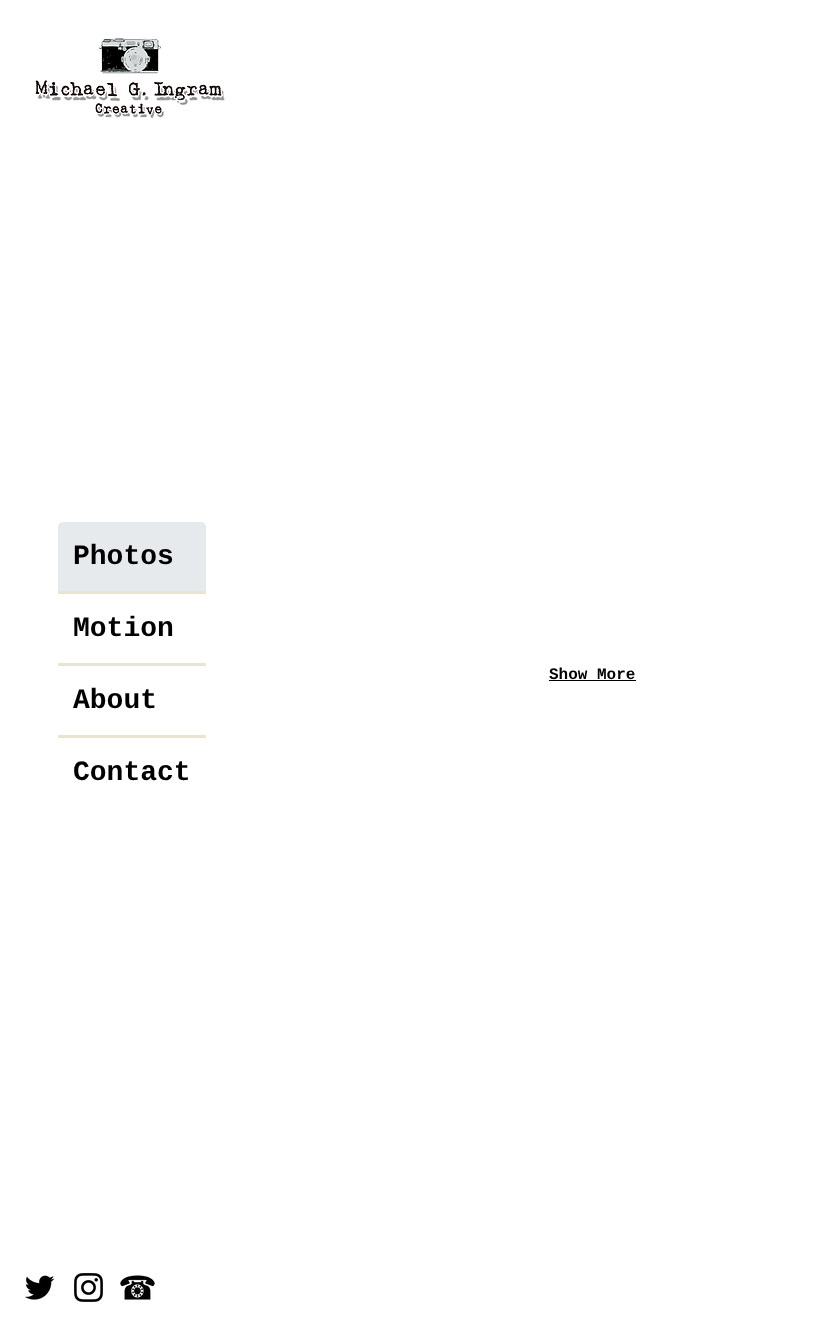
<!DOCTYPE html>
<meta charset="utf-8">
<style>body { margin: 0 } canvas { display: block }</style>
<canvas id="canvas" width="839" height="1327"></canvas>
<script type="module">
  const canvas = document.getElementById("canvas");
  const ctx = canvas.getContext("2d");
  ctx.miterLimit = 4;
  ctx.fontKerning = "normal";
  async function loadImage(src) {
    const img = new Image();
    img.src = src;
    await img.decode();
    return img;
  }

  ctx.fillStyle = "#ffffff";
  ctx.fillRect(0, 0, 839, 1327);
  ctx.drawImage(await loadImage("img1.png"), 35, 38, 190, 81);
  ctx.fillStyle = "#e8e4d1";
  ctx.fillRect(58, 591, 148, 3);
  ctx.fillStyle = "#e6eaed";
  ctx.beginPath();
  ctx.roundRect(58, 522, 148, 69, [5, 5, 0, 0]);
  ctx.fill();
  ctx.font = "bold 28px Liberation Mono";
  ctx.fillStyle = "#000000";
  ctx.fillText("Photos", 73, 564);
  ctx.fillStyle = "#e8e4d1";
  ctx.fillRect(58, 663, 148, 3);
  ctx.fillStyle = "#000000";
  ctx.fillText("Motion", 73, 636);
  ctx.fillStyle = "#e8e4d1";
  ctx.fillRect(58, 735, 148, 3);
  ctx.fillStyle = "#000000";
  ctx.fillText("About", 73, 708);
  ctx.fillText("Contact", 73, 780);
  ctx.font = "bold 16px Liberation Mono";
  ctx.fillText("Show More", 549, 679);
  ctx.fillRect(549, 680, 87, 1);
  ctx.drawImage(await loadImage("img2.png"), 25, 1275, 30, 25);
  ctx.drawImage(await loadImage("img3.png"), 74, 1273, 29, 29);
  ctx.drawImage(await loadImage("img4.png"), 120, 1275, 35, 25);
</script>
